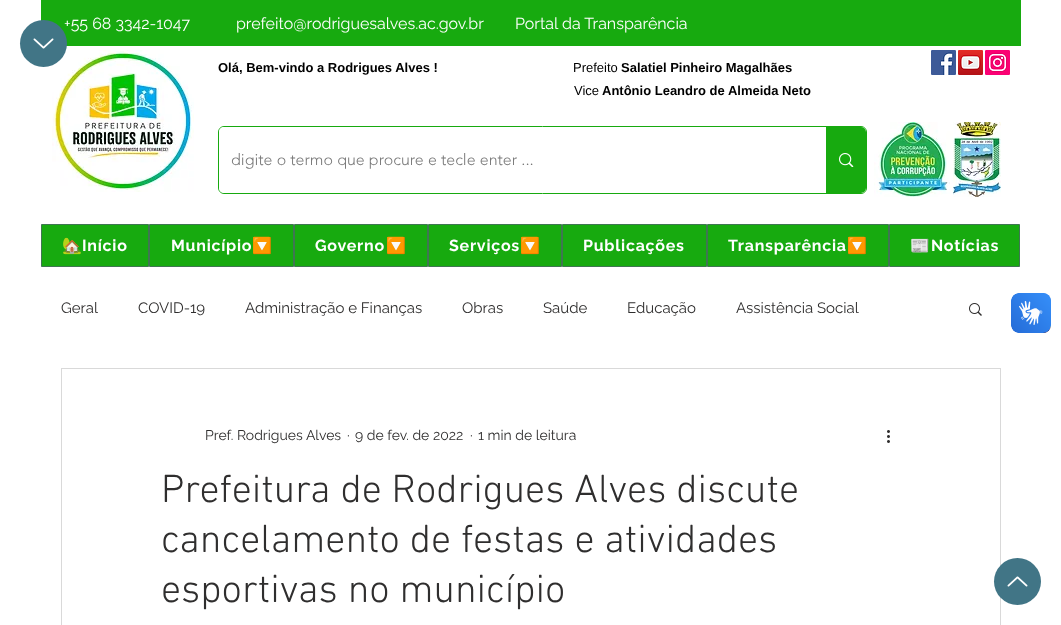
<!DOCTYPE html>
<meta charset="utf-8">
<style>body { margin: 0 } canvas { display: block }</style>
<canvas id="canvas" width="1061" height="625"></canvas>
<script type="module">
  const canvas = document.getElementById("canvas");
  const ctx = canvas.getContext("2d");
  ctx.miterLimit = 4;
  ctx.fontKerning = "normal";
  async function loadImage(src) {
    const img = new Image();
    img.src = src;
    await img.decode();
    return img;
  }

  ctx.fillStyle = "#ffffff";
  ctx.fillRect(0, 0, 1061, 625);
  ctx.fillStyle = "#17aa0f";
  ctx.fillRect(41, 0, 980, 46);
  ctx.font = "16px Raleway";
  ctx.fillStyle = "#ffffff";
  ctx.fillText("+55 68 3342-1047", 64, 29);
  ctx.drawImage(await loadImage("img2.png"), 52, 50, 142, 142);
  ctx.fillStyle = "#417586";
  ctx.beginPath();
  ctx.arc(43.5, 43.5, 23.5, 0, Math.PI * 2);
  ctx.fill();
  ctx.drawImage(await loadImage("img1.png"), 33, 38, 21, 11);
  ctx.fillStyle = "#ffffff";
  ctx.fillText("prefeito@rodriguesalves.ac.gov.br", 236, 29);
  ctx.fillText("Portal da Transparência", 515, 29);
  ctx.font = "bold 13px Liberation Sans";
  ctx.fillStyle = "#000000";
  ctx.fillText("Olá, Bem-vindo a Rodrigues Alves !", 218, 72);
  ctx.font = "13px Liberation Sans";
  ctx.fillText("Prefeito", 573, 72);
  ctx.font = "bold 13px Liberation Sans";
  ctx.fillText("Salatiel Pinheiro Magalhães", 621, 72);
  ctx.drawImage(await loadImage("img3.png"), 931, 50, 25, 25);
  ctx.drawImage(await loadImage("img4.png"), 958, 50, 25, 25);
  ctx.drawImage(await loadImage("img5.png"), 985, 50, 25, 25);
  ctx.font = "13px Liberation Sans";
  ctx.fillText("Vice", 574, 95);
  ctx.font = "bold 13px Liberation Sans";
  ctx.fillText("Antônio Leandro de Almeida Neto", 602, 95);
  ctx.beginPath();
  ctx.roundRect(218.5, 126.5, 648, 67, 5.5);
  ctx.strokeStyle = "#17aa0f";
  ctx.stroke();
  ctx.fillStyle = "#ffffff";
  ctx.beginPath();
  ctx.roundRect(219, 127, 647, 66, 5);
  ctx.fill();
  ctx.font = "300 16px 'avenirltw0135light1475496'";
  ctx.fillStyle = "#787878";
  ctx.fillText("digite o termo que procure e tecle enter ...", 231, 165);
  ctx.fillStyle = "#17aa0f";
  ctx.beginPath();
  ctx.roundRect(826, 127, 40, 66, [0, 5, 5, 0]);
  ctx.fill();
  ctx.drawImage(await loadImage("img6.png"), 839, 153, 15, 14);
  ctx.drawImage(await loadImage("img7.png"), 874, 122, 79, 75);
  ctx.drawImage(await loadImage("img8.png"), 953, 122, 48, 75);
  ctx.beginPath();
  ctx.rect(41.5, 224.5, 107, 42);
  ctx.fill();
  ctx.strokeStyle = "#3f7652";
  ctx.stroke();
  ctx.letterSpacing = "0.75px";
  ctx.font = "bold 16px Noto Color Emoji";
  ctx.fillStyle = "#ffffff";
  ctx.fillText("🏡", 62, 251);
  ctx.font = "bold 16px Raleway";
  ctx.fillText("Início", 82, 251);
  ctx.fillStyle = "#17aa0f";
  ctx.beginPath();
  ctx.rect(149.5, 224.5, 144, 42);
  ctx.fill();
  ctx.stroke();
  ctx.fillStyle = "#ffffff";
  ctx.fillText("Município", 171, 251);
  ctx.font = "bold 16px Noto Color Emoji";
  ctx.fillText("🔽", 252, 251);
  ctx.fillStyle = "#17aa0f";
  ctx.beginPath();
  ctx.rect(294.5, 224.5, 133, 42);
  ctx.fill();
  ctx.stroke();
  ctx.font = "bold 16px Raleway";
  ctx.fillStyle = "#ffffff";
  ctx.fillText("Governo", 315, 251);
  ctx.font = "bold 16px Noto Color Emoji";
  ctx.fillText("🔽", 386, 251);
  ctx.fillStyle = "#17aa0f";
  ctx.beginPath();
  ctx.rect(428.5, 224.5, 133, 42);
  ctx.fill();
  ctx.stroke();
  ctx.font = "bold 16px Raleway";
  ctx.fillStyle = "#ffffff";
  ctx.fillText("Serviços", 449, 251);
  ctx.font = "bold 16px Noto Color Emoji";
  ctx.fillText("🔽", 520, 251);
  ctx.fillStyle = "#17aa0f";
  ctx.beginPath();
  ctx.rect(562.5, 224.5, 144, 42);
  ctx.fill();
  ctx.stroke();
  ctx.font = "bold 16px Raleway";
  ctx.fillStyle = "#ffffff";
  ctx.fillText("Publicações", 583, 251);
  ctx.fillStyle = "#17aa0f";
  ctx.beginPath();
  ctx.rect(707.5, 224.5, 181, 42);
  ctx.fill();
  ctx.stroke();
  ctx.fillStyle = "#ffffff";
  ctx.fillText("Transparência", 728, 251);
  ctx.font = "bold 16px Noto Color Emoji";
  ctx.fillText("🔽", 847, 251);
  ctx.fillStyle = "#17aa0f";
  ctx.beginPath();
  ctx.rect(889.5, 224.5, 130, 42);
  ctx.fill();
  ctx.stroke();
  ctx.fillStyle = "#ffffff";
  ctx.fillText("📰", 910, 251);
  ctx.font = "bold 16px Raleway";
  ctx.fillText("Notícias", 931, 251);
  ctx.letterSpacing = "0px";
  ctx.font = "15px Raleway";
  ctx.fillStyle = "#2f2e2e";
  ctx.fillText("Geral", 61, 313);
  ctx.fillText("COVID-19", 138, 313);
  ctx.fillText("Administração e Finanças", 245, 313);
  ctx.fillText("Obras", 462, 313);
  ctx.fillText("Saúde", 543, 313);
  ctx.fillText("Educação", 627, 313);
  ctx.fillText("Assistência Social", 736, 313);
  ctx.drawImage(await loadImage("img9.png"), 969, 303, 13, 13);
  ctx.strokeStyle = "#d9d9d9";
  ctx.strokeRect(61.5, 368.5, 939, 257);
  ctx.font = "14px Raleway";
  ctx.fillText("Pref. Rodrigues Alves", 205, 440);
  ctx.fillText("·", 347, 440);
  ctx.fillText("9 de fev. de 2022", 355, 440);
  ctx.fillText("·", 470, 440);
  ctx.fillText("1 min de leitura", 478, 440);
  ctx.drawImage(await loadImage("img10.png"), 887, 430, 3, 13);
  ctx.font = "300 40px 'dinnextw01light'";
  ctx.fillText("Prefeitura de Rodrigues Alves discute", 161, 502);
  ctx.fillText("cancelamento de festas e atividades", 161, 552);
  ctx.fillText("esportivas no município", 161, 602);
  ctx.fillStyle = "#417586";
  ctx.beginPath();
  ctx.arc(1017.5, 581.5, 23.5, 0, Math.PI * 2);
  ctx.fill();
  ctx.drawImage(await loadImage("img11.png"), 1007, 576, 21, 11);
  ctx.drawImage(await loadImage("img12.png"), 1011, 293, 40, 40);
  ctx.drawImage(await loadImage("img13.png"), 1011, 293, 40, 40);
</script>
